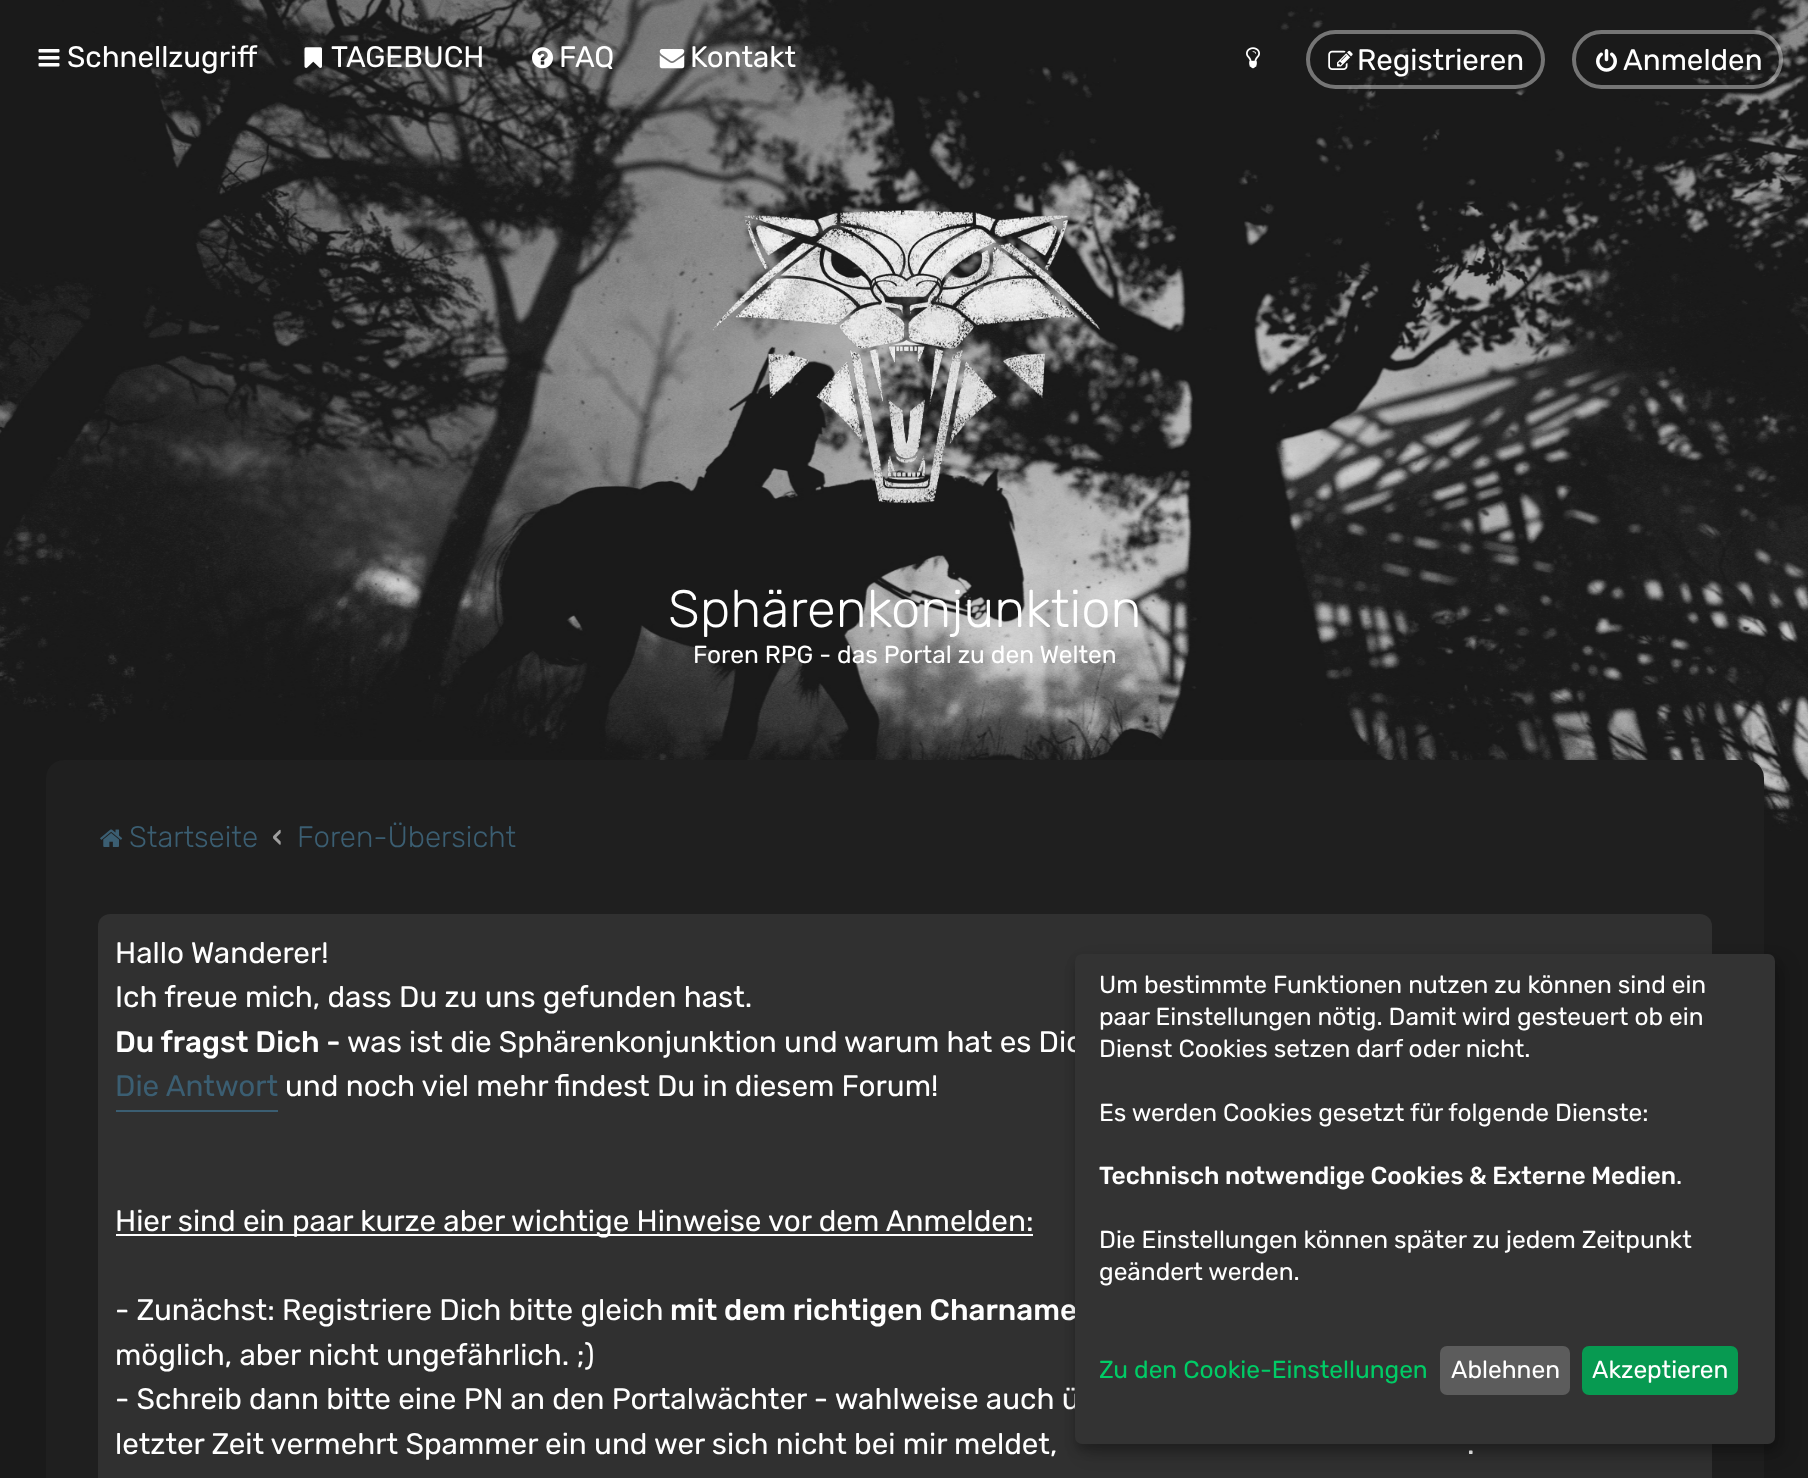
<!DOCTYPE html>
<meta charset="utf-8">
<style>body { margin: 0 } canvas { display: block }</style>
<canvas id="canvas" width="1808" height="1478"></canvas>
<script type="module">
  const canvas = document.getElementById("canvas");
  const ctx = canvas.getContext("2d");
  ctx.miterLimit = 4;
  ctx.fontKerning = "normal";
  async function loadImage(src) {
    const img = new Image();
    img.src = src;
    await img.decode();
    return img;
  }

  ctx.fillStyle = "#1a1a1a";
  ctx.fillRect(0, 0, 1808, 1478);
  ctx.drawImage(await loadImage("img1.png"), 0, 0, 1808, 831);
  ctx.drawImage(await loadImage("img2.png"), 38, 49, 22, 18);
  ctx.font = "29.5px Rubik";
  ctx.fillStyle = "#ffffff";
  ctx.fillText("Schnellzugriff", 67, 67);
  ctx.drawImage(await loadImage("img3.png"), 304, 47, 18, 21);
  ctx.fillText("TAGEBUCH", 331, 67);
  ctx.drawImage(await loadImage("img4.png"), 532, 47, 21, 22);
  ctx.fillText("FAQ", 559, 67);
  ctx.drawImage(await loadImage("img5.png"), 659, 49, 26, 20);
  ctx.fillText("Kontakt", 690, 67);
  ctx.drawImage(await loadImage("img6.png"), 1246, 47, 14, 22);
  ctx.beginPath();
  ctx.roundRect(1308, 32, 235, 55, 27.5);
  ctx.strokeStyle = "rgba(255, 255, 255, 0.4)";
  ctx.lineWidth = 4;
  ctx.stroke();
  ctx.drawImage(await loadImage("img7.png"), 1328, 50, 25, 20);
  ctx.fillText("Registrieren", 1357, 70);
  ctx.beginPath();
  ctx.roundRect(1574, 32, 207, 55, 27.5);
  ctx.stroke();
  ctx.drawImage(await loadImage("img8.png"), 1596, 49, 21, 23);
  ctx.fillText("Anmelden", 1623, 70);
  ctx.drawImage(await loadImage("img9.png"), 712, 210, 388, 294);
  ctx.font = "300 52.5px Rubik";
  ctx.fillText("Sphärenkonjunktion", 668, 627);
  ctx.font = "24.5px Rubik";
  ctx.fillText("Foren RPG - das Portal zu den Welten", 693, 663);
  ctx.fillStyle = "#1f1f1f";
  ctx.beginPath();
  ctx.roundRect(46, 760, 1718, 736, 18);
  ctx.fill();
  ctx.drawImage(await loadImage("img10.png"), 100, 829, 23, 18);
  ctx.font = "300 29.5px Rubik";
  ctx.fillStyle = "#3b5e72";
  ctx.fillText("Startseite", 129, 847);
  ctx.font = "500 29.5px Rubik";
  ctx.fillStyle = "#9f9f9f";
  ctx.fillText("‹", 272, 847);
  ctx.font = "300 29.5px Rubik";
  ctx.fillStyle = "#3b5e72";
  ctx.fillText("Foren-Übersicht", 297, 847);
  ctx.fillStyle = "#303030";
  ctx.beginPath();
  ctx.roundRect(98, 914, 1614, 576, 12);
  ctx.fill();
  ctx.font = "29.65px Rubik";
  ctx.fillStyle = "#ffffff";
  ctx.fillText("Hallo Wanderer!", 115, 963);
  ctx.fillText("Ich freue mich, dass Du zu uns gefunden hast.", 115, 1007);
  ctx.font = "500 29.65px Rubik";
  ctx.fillText("Du fragst Dich -", 115, 1052);
  ctx.font = "29.65px Rubik";
  ctx.fillText("was ist die Sphärenkonjunktion und warum hat es Dic", 347, 1052);
  ctx.fillStyle = "#3b5e72";
  ctx.fillRect(116, 1110, 162, 2);
  ctx.fillText("Die Antwort", 115, 1096);
  ctx.fillStyle = "#ffffff";
  ctx.fillText("und noch viel mehr findest Du in diesem Forum!", 285, 1096);
  ctx.fillRect(116, 1234, 917, 2);
  ctx.fillText("Hier sind ein paar kurze aber wichtige Hinweise vor dem Anmelden:", 115, 1231);
  ctx.fillText("- Zunächst: Registriere Dich bitte gleich", 115, 1320);
  ctx.font = "500 29.65px Rubik";
  ctx.fillText("mit dem richtigen Charname", 670, 1320);
  ctx.font = "29.65px Rubik";
  ctx.fillText("möglich, aber nicht ungefährlich. ;)", 115, 1365);
  ctx.fillText("- Schreib dann bitte eine PN an den Portalwächter - wahlweise auch ü", 115, 1409);
  ctx.fillText("letzter Zeit vermehrt Spammer ein und wer sich nicht bei mir meldet,", 115, 1454);
  ctx.fillText(".", 1467, 1454);
  ctx.fillStyle = "rgba(0, 0, 0, 0.19)";
  ctx.filter = "blur(9px)";
  ctx.beginPath();
  ctx.roundRect(1083, 963, 700, 490, 7);
  ctx.fill();
  ctx.filter = "none";
  ctx.fillStyle = "rgba(0, 0, 0, 0.2)";
  ctx.filter = "blur(5px)";
  ctx.beginPath();
  ctx.roundRect(1075, 961, 700, 490, 7);
  ctx.fill();
  ctx.filter = "none";
  ctx.fillStyle = "#333333";
  ctx.beginPath();
  ctx.roundRect(1075, 954, 700, 490, 7);
  ctx.fill();
  ctx.font = "24.5px Rubik";
  ctx.fillStyle = "#ffffff";
  ctx.fillText("Um bestimmte Funktionen nutzen zu können sind ein", 1099, 993);
  ctx.fillText("paar Einstellungen nötig. Damit wird gesteuert ob ein", 1099, 1025);
  ctx.fillText("Dienst Cookies setzen darf oder nicht.", 1099, 1057);
  ctx.fillText("Es werden Cookies gesetzt für folgende Dienste:", 1099, 1121);
  ctx.font = "500 24.5px Rubik";
  ctx.fillText("Technisch notwendige Cookies & Externe Medien", 1099, 1184);
  ctx.font = "24.5px Rubik";
  ctx.fillText(".", 1676, 1184);
  ctx.fillText("Die Einstellungen können später zu jedem Zeitpunkt", 1099, 1248);
  ctx.fillText("geändert werden.", 1099, 1280);
  ctx.fillStyle = "#00cc66";
  ctx.fillText("Zu den Cookie-Einstellungen", 1099, 1378);
  ctx.fillStyle = "#5c5c5c";
  ctx.beginPath();
  ctx.roundRect(1440, 1346, 130, 49, 7);
  ctx.fill();
  ctx.fillStyle = "#ffffff";
  ctx.fillText("Ablehnen", 1451, 1378);
  ctx.fillStyle = "#079a51";
  ctx.beginPath();
  ctx.roundRect(1582, 1346, 156, 49, 7);
  ctx.fill();
  ctx.fillStyle = "#ffffff";
  ctx.fillText("Akzeptieren", 1592, 1378);
</script>
